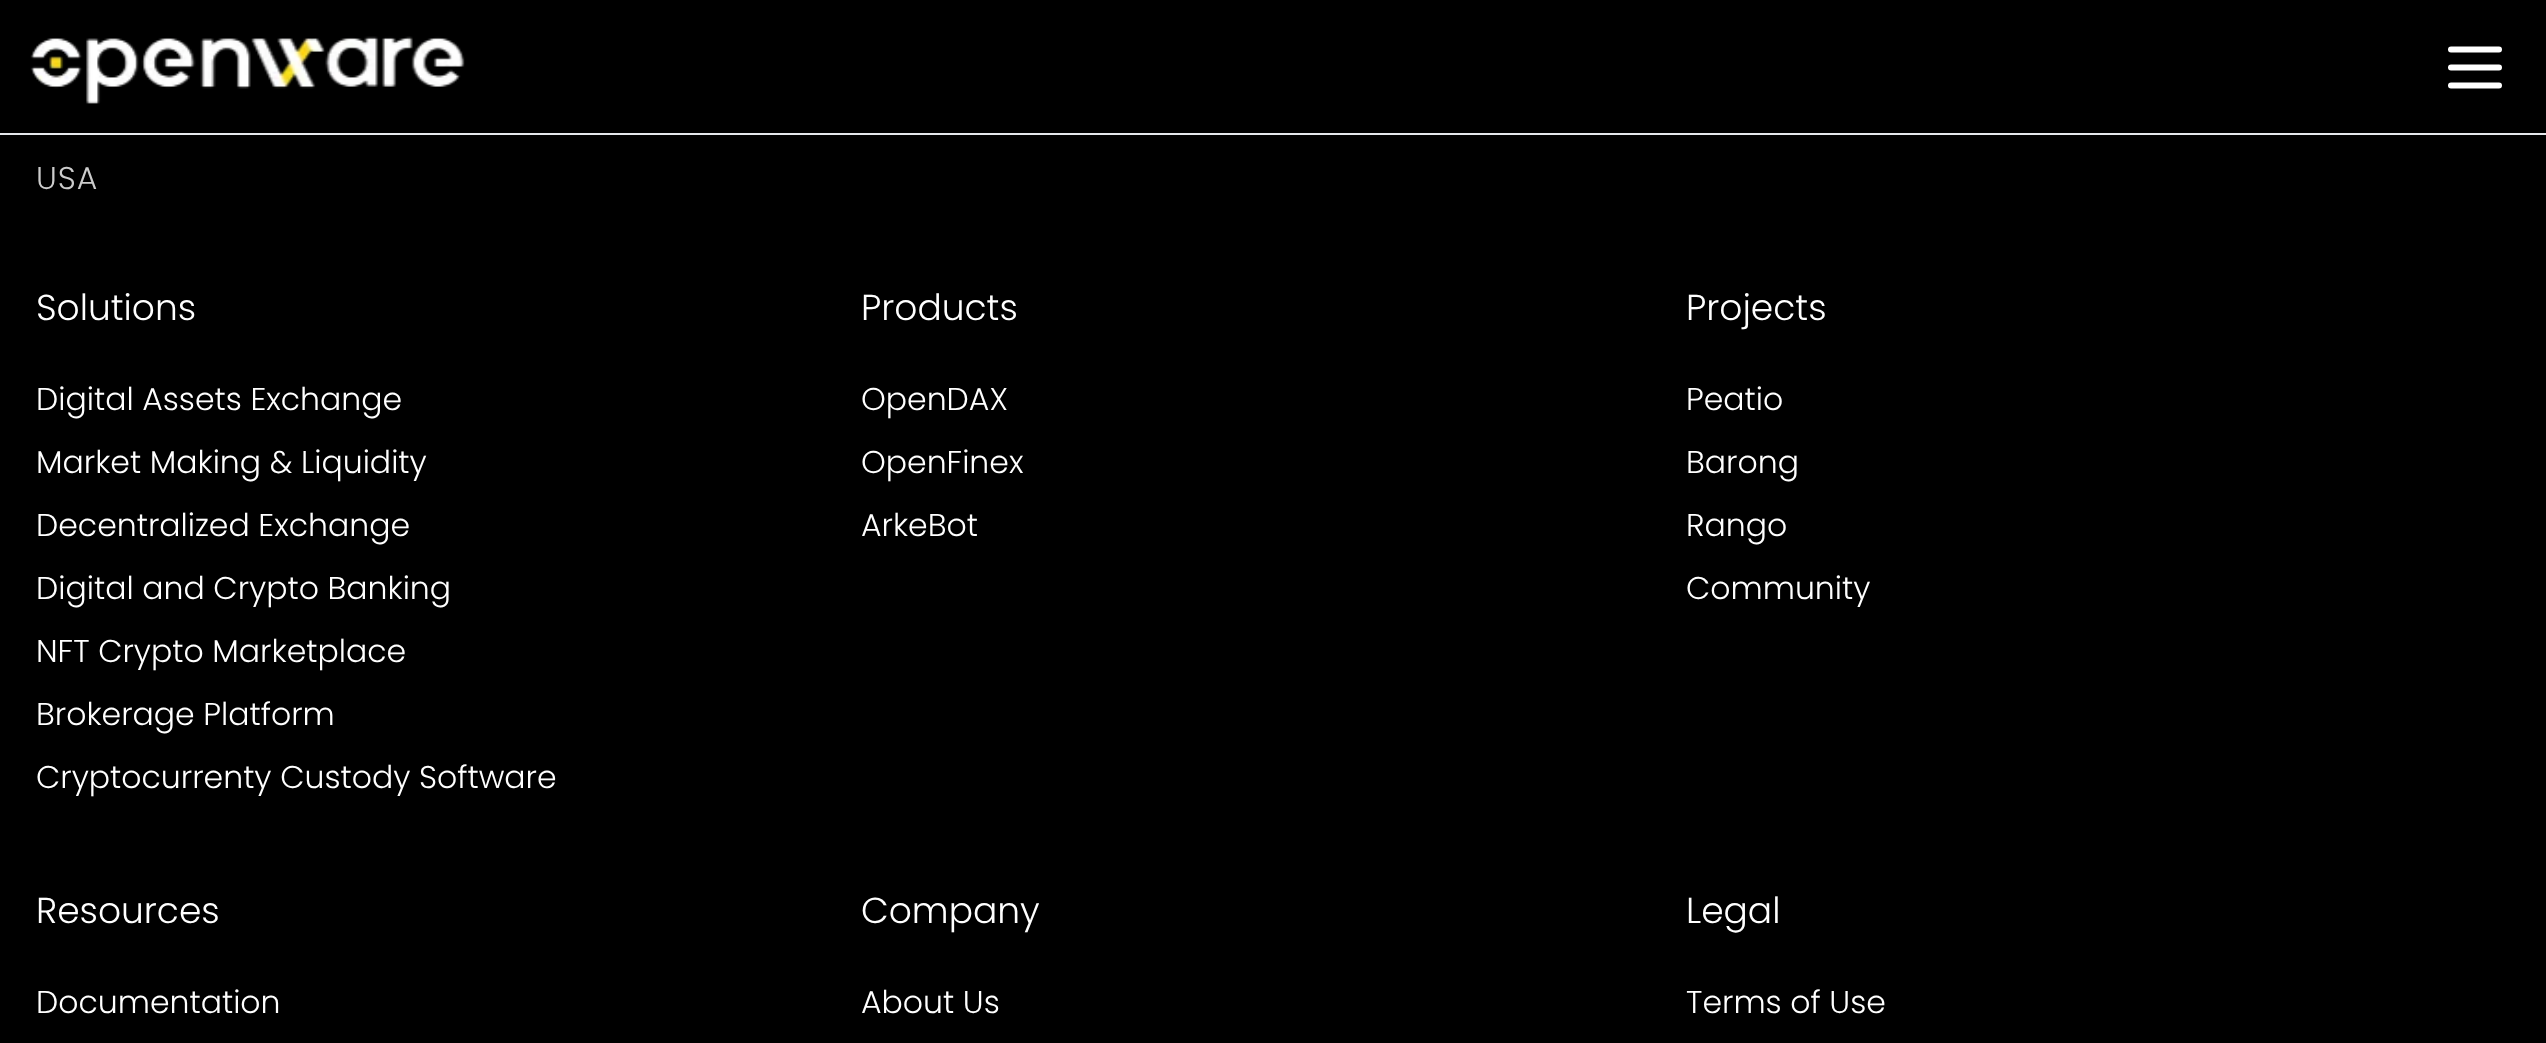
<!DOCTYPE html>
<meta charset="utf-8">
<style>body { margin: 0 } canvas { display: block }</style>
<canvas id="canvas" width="2546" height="1043"></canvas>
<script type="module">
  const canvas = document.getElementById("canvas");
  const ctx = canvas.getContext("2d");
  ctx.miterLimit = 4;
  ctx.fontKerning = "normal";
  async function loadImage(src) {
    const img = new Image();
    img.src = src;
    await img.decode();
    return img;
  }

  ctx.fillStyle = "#000000";
  ctx.fillRect(0, 0, 2546, 1043);
  ctx.fillStyle = "#e5e7eb";
  ctx.fillRect(0, 133, 2546, 2);
  ctx.drawImage(await loadImage("img1.png"), 30, 36, 435, 68);
  ctx.beginPath();
  ctx.moveTo(2451, 49.5);
  ctx.lineTo(2499, 49.5);
  ctx.moveTo(2451, 67.5);
  ctx.lineTo(2499, 67.5);
  ctx.moveTo(2451, 85.5);
  ctx.lineTo(2499, 85.5);
  ctx.strokeStyle = "#ffffff";
  ctx.lineWidth = 6;
  ctx.lineCap = "round";
  ctx.lineJoin = "round";
  ctx.stroke();
  ctx.letterSpacing = "1px";
  ctx.font = "300 31.5px Poppins";
  ctx.fillStyle = "#cccccc";
  ctx.fillText("USA", 36, 189);
  ctx.letterSpacing = "0px";
  ctx.font = "300 36px Poppins";
  ctx.fillStyle = "#ffffff";
  ctx.fillText("Solutions", 36, 320);
  ctx.font = "300 31.5px Poppins";
  ctx.fillText("Digital Assets Exchange", 36, 410);
  ctx.fillText("Market Making & Liquidity", 36, 473);
  ctx.fillText("Decentralized Exchange", 36, 536);
  ctx.fillText("Digital and Crypto Banking", 36, 599);
  ctx.fillText("NFT Crypto Marketplace", 36, 662);
  ctx.fillText("Brokerage Platform", 36, 725);
  ctx.fillText("Cryptocurrenty Custody Software", 36, 788);
  ctx.font = "300 36px Poppins";
  ctx.fillText("Products", 861, 320);
  ctx.font = "300 31.5px Poppins";
  ctx.fillText("OpenDAX", 861, 410);
  ctx.fillText("OpenFinex", 861, 473);
  ctx.fillText("ArkeBot", 861, 536);
  ctx.font = "300 36px Poppins";
  ctx.fillText("Projects", 1686, 320);
  ctx.font = "300 31.5px Poppins";
  ctx.fillText("Peatio", 1686, 410);
  ctx.fillText("Barong", 1686, 473);
  ctx.fillText("Rango", 1686, 536);
  ctx.fillText("Community", 1686, 599);
  ctx.font = "300 36px Poppins";
  ctx.fillText("Resources", 36, 923);
  ctx.font = "300 31.5px Poppins";
  ctx.fillText("Documentation", 36, 1013);
  ctx.font = "300 36px Poppins";
  ctx.fillText("Company", 861, 923);
  ctx.font = "300 31.5px Poppins";
  ctx.fillText("About Us", 861, 1013);
  ctx.font = "300 36px Poppins";
  ctx.fillText("Legal", 1686, 923);
  ctx.font = "300 31.5px Poppins";
  ctx.fillText("Terms of Use", 1686, 1013);
</script>
